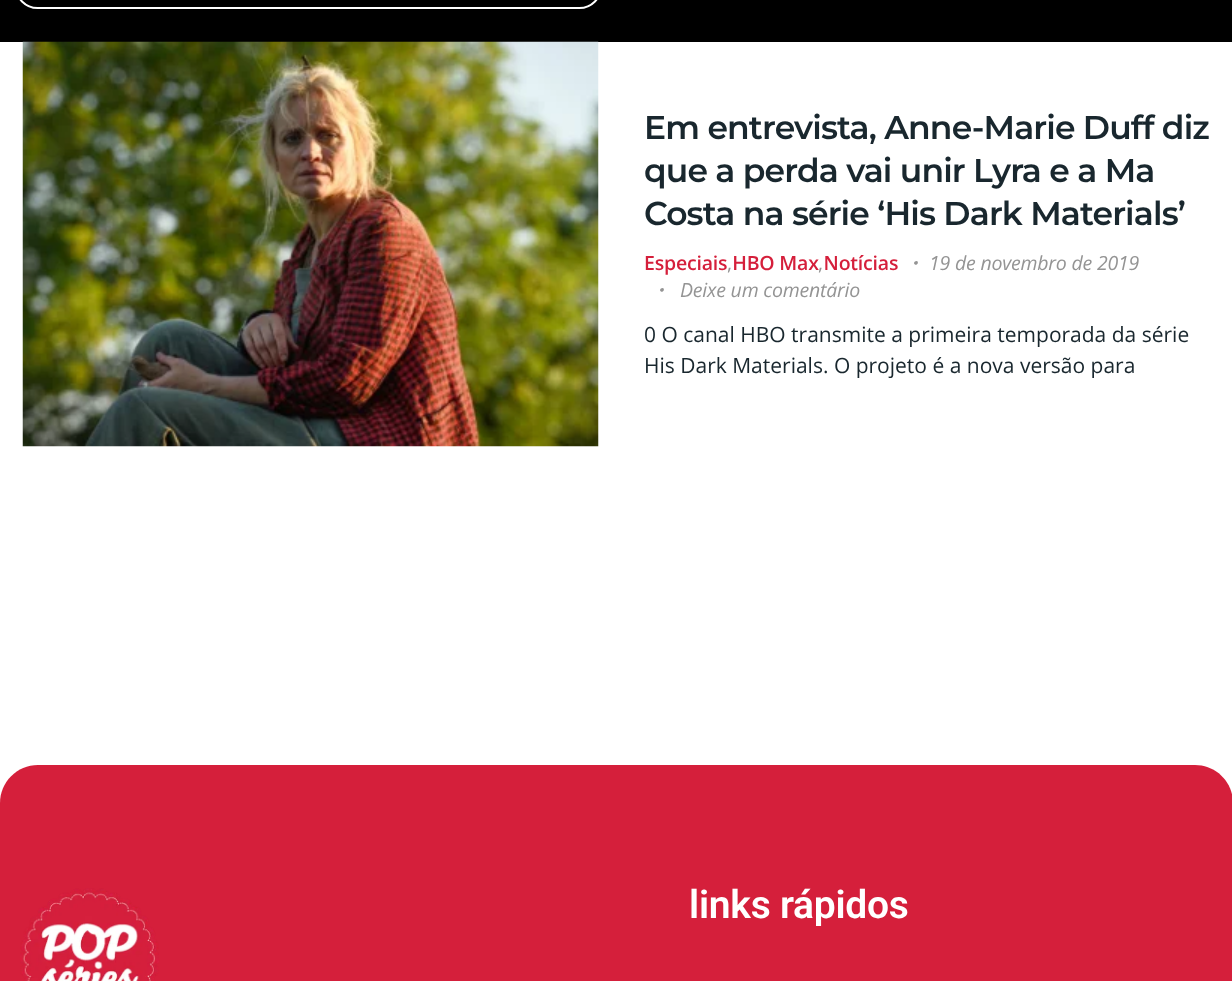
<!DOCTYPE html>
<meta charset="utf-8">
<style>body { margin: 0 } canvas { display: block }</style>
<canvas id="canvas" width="1232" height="981"></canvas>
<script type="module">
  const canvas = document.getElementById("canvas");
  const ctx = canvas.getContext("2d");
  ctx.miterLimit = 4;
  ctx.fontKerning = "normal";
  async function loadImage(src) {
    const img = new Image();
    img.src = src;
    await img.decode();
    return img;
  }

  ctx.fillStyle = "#ffffff";
  ctx.fillRect(0, 0, 1232, 981);
  ctx.fillStyle = "#000000";
  ctx.fillRect(0, 0, 1232, 42);
  ctx.beginPath();
  ctx.roundRect(16, -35, 585, 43, 32.5);
  ctx.strokeStyle = "#ffffff";
  ctx.lineWidth = 2;
  ctx.stroke();
  ctx.drawImage(await loadImage("img1.png"), 22, 41, 577, 406);
  ctx.letterSpacing = "-0.85px";
  ctx.font = "600 33px Montserrat";
  ctx.fillStyle = "#19272e";
  ctx.fillText("Em entrevista, Anne-Marie Duff diz", 644, 139);
  ctx.fillText("que a perda vai unir Lyra e a Ma", 644, 182);
  ctx.fillText("Costa na série ‘His Dark Materials’", 644, 225);
  ctx.letterSpacing = "-0.2px";
  ctx.font = "600 19.5px Open Sans";
  ctx.fillStyle = "#d51f3b";
  ctx.fillText("Especiais HBO Max Notícias", 644, 270);
  ctx.font = "19.5px Open Sans";
  ctx.fillStyle = "#949494";
  ctx.fillText(",", 727, 270);
  ctx.fillText(",", 818, 270);
  ctx.font = "italic bold 19.5px WenQuanYi Zen Hei";
  ctx.fillText("・", 904, 270);
  ctx.font = "italic 19.5px Open Sans";
  ctx.fillText("19 de novembro de 2019", 929, 270);
  ctx.font = "italic bold 19.5px WenQuanYi Zen Hei";
  ctx.fillText("・", 650, 297);
  ctx.font = "italic 19.5px Open Sans";
  ctx.fillText("Deixe um comentário", 680, 297);
  ctx.letterSpacing = "0px";
  ctx.font = "21px Open Sans";
  ctx.fillStyle = "#19272e";
  ctx.fillText("0 O canal HBO transmite a primeira temporada da série", 644, 342);
  ctx.fillText("His Dark Materials. O projeto é a nova versão para", 644, 373);
  ctx.fillStyle = "#d51f3b";
  ctx.beginPath();
  ctx.moveTo(38, 765);
  ctx.lineTo(1195, 765);
  ctx.bezierCurveTo(1216, 765, 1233, 782, 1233, 803);
  ctx.lineTo(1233, 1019);
  ctx.lineTo(0, 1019);
  ctx.lineTo(0, 803);
  ctx.bezierCurveTo(0, 782, 17, 765, 38, 765);
  ctx.closePath();
  ctx.fill();
  ctx.drawImage(await loadImage("img2.png"), 20, 888, 139, 93);
  ctx.letterSpacing = "-0.25px";
  ctx.font = "600 39px Roboto";
  ctx.fillStyle = "#ffffff";
  ctx.fillText("links rápidos", 689, 918);
</script>
